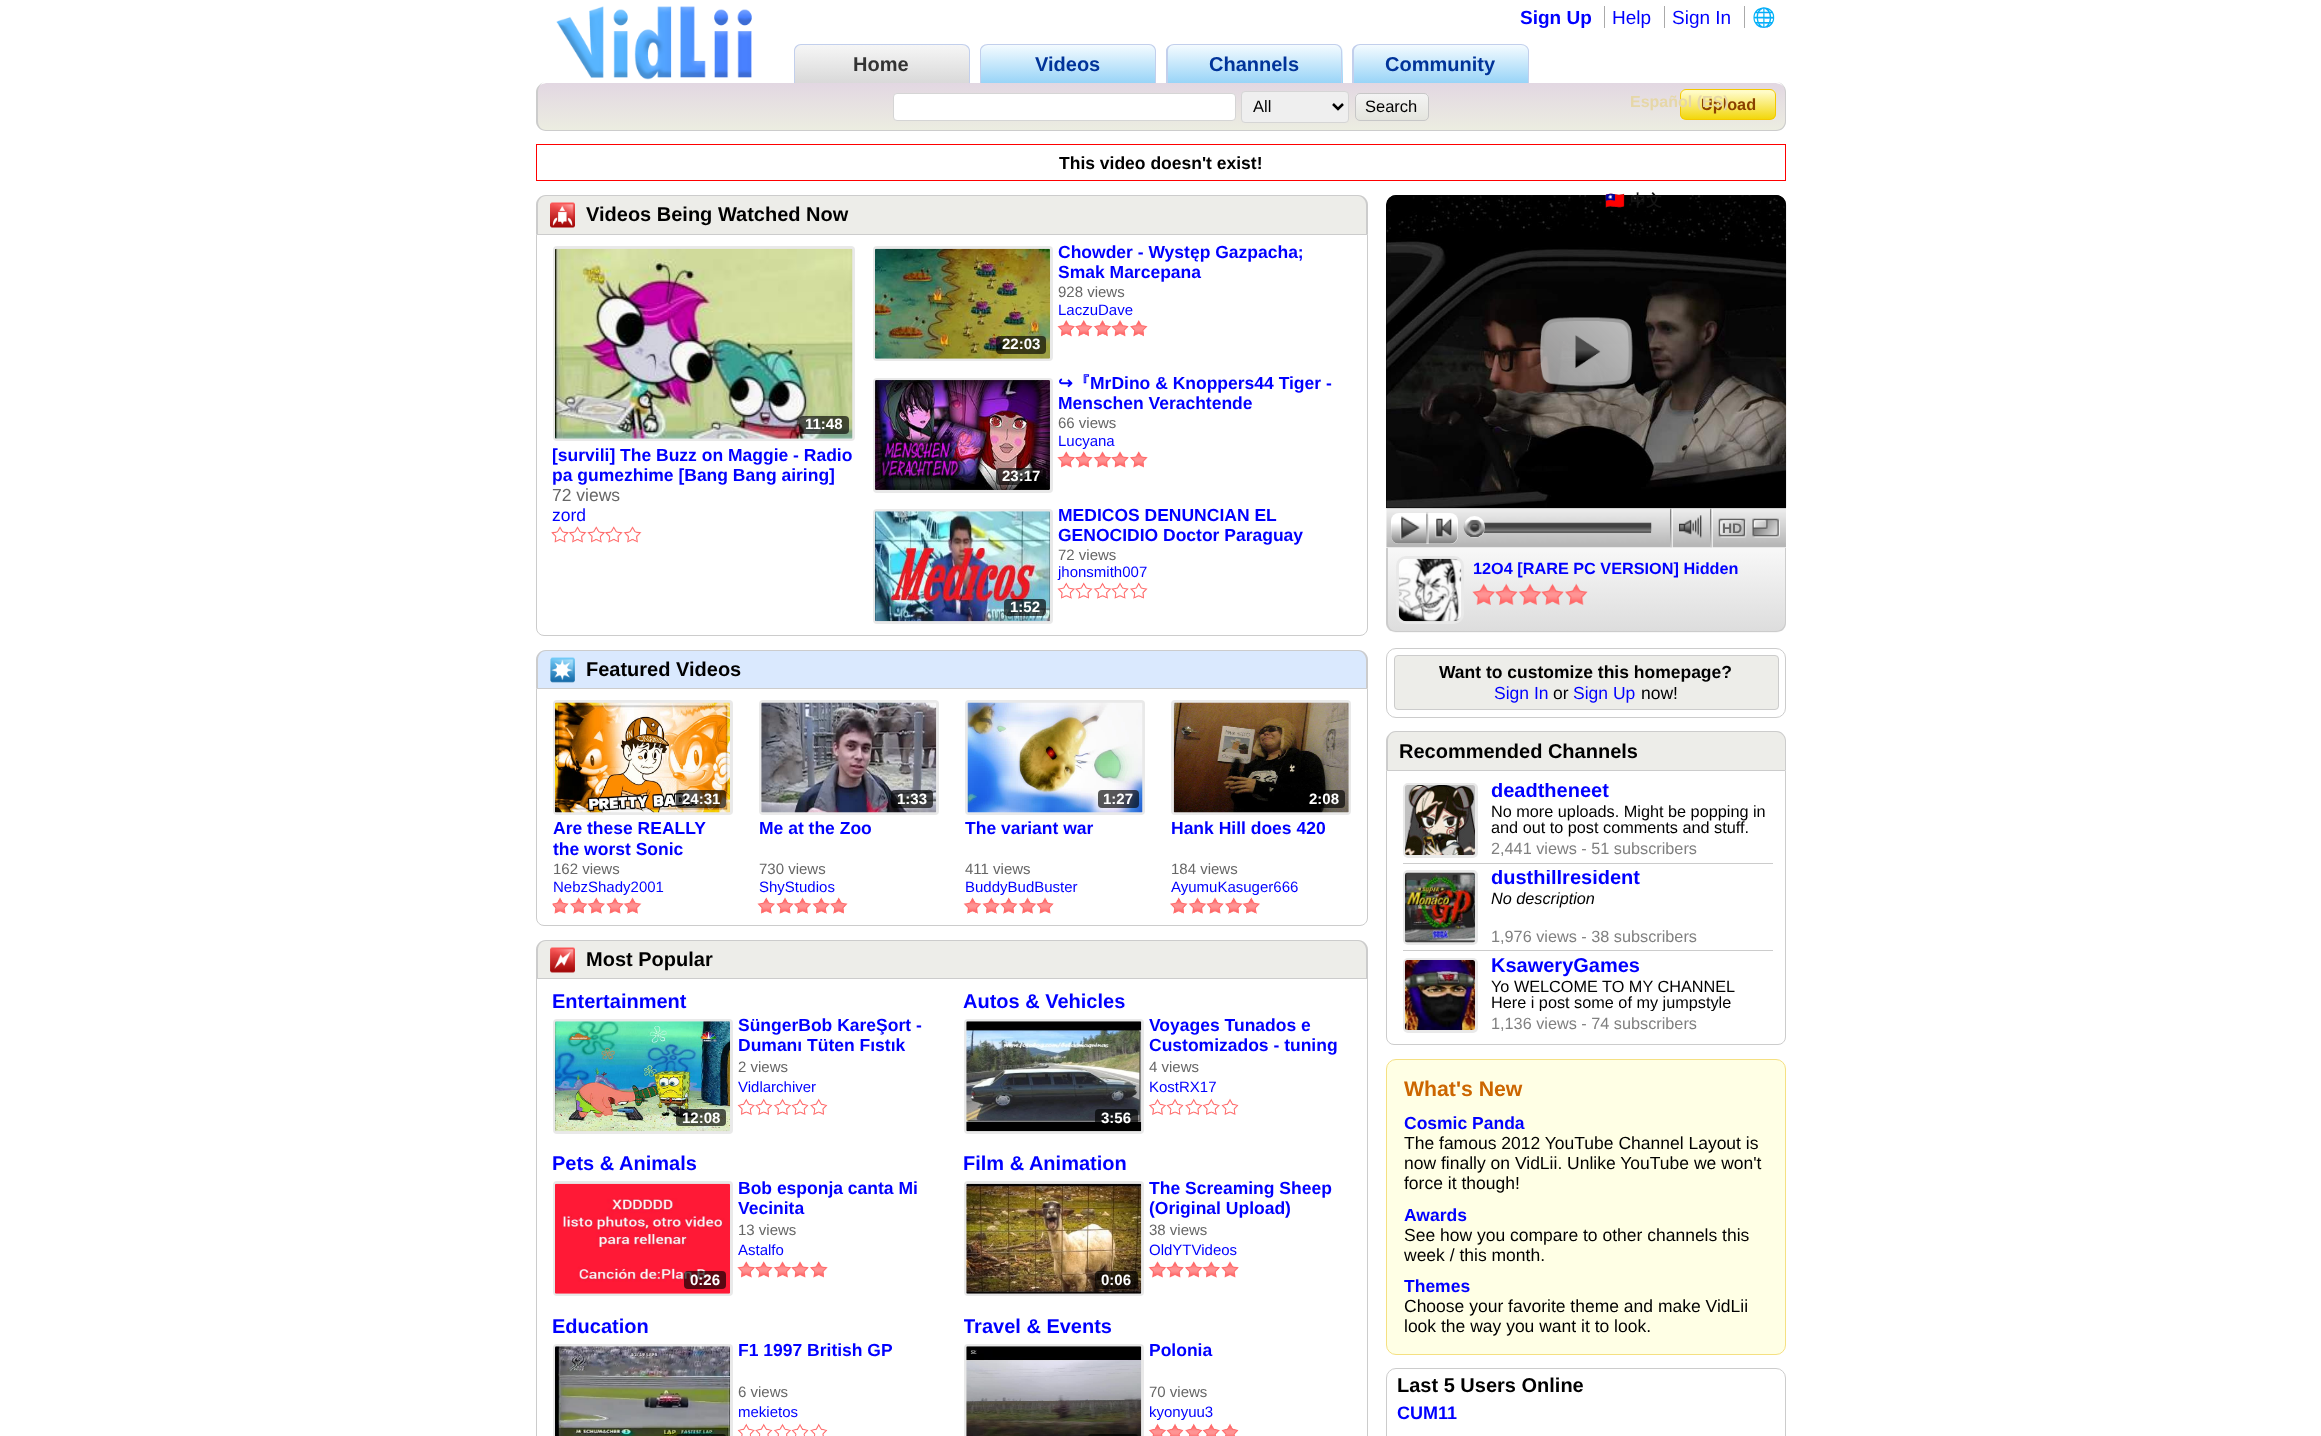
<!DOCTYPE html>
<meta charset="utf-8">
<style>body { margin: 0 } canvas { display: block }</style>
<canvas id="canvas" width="2321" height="1436"></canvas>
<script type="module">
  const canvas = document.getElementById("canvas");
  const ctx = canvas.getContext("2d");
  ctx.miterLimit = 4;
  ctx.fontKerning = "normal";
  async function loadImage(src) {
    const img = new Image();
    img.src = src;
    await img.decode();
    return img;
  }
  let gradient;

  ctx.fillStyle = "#ffffff";
  ctx.fillRect(0, 0, 2321, 1436);
  ctx.drawImage(await loadImage("img1.png"), 556, 6, 196, 74);
  ctx.save();
  ctx.beginPath();
  ctx.roundRect(794, 44, 176, 40, [8, 8, 0, 0]);
  ctx.clip();
  gradient = ctx.createLinearGradient(882, 45, 882, 84);
  gradient.addColorStop(0, "#f6f6f6");
  gradient.addColorStop(1, "#d8d8d8");
  ctx.fillStyle = gradient;
  ctx.fillRect(794, 45, 176, 38);
  ctx.restore();
  ctx.fillStyle = "#c2cfec";
  ctx.beginPath();
  ctx.moveTo(801, 44);
  ctx.lineTo(962, 44);
  ctx.bezierCurveTo(967, 44, 970, 47, 970, 51);
  ctx.lineTo(970, 84);
  ctx.lineTo(794, 84);
  ctx.lineTo(794, 51);
  ctx.bezierCurveTo(794, 47, 797, 44, 801, 44);
  ctx.closePath();
  ctx.moveTo(801, 45);
  ctx.lineTo(962, 45);
  ctx.bezierCurveTo(966, 45, 969, 48, 969, 51);
  ctx.lineTo(969, 84);
  ctx.lineTo(795, 84);
  ctx.lineTo(795, 51);
  ctx.bezierCurveTo(795, 48, 798, 45, 801, 45);
  ctx.closePath();
  ctx.fill("evenodd");
  ctx.font = "bold 20px Liberation Sans";
  ctx.fillStyle = "#333333";
  ctx.fillText("Home", 853, 71);
  ctx.save();
  ctx.beginPath();
  ctx.roundRect(980, 44, 176, 40, [8, 8, 0, 0]);
  ctx.clip();
  gradient = ctx.createLinearGradient(1068, 45, 1068, 84);
  gradient.addColorStop(0, "#f4fbff");
  gradient.addColorStop(1, "#96d3f7");
  ctx.fillStyle = gradient;
  ctx.fillRect(980, 45, 176, 38);
  ctx.restore();
  ctx.fillStyle = "#c2cfec";
  ctx.beginPath();
  ctx.moveTo(988, 44);
  ctx.lineTo(1149, 44);
  ctx.bezierCurveTo(1153, 44, 1156, 47, 1156, 51);
  ctx.lineTo(1156, 84);
  ctx.lineTo(980, 84);
  ctx.lineTo(980, 51);
  ctx.bezierCurveTo(980, 47, 983, 44, 988, 44);
  ctx.closePath();
  ctx.moveTo(988, 45);
  ctx.lineTo(1149, 45);
  ctx.bezierCurveTo(1152, 45, 1155, 48, 1155, 51);
  ctx.lineTo(1155, 84);
  ctx.lineTo(981, 84);
  ctx.lineTo(981, 51);
  ctx.bezierCurveTo(981, 48, 984, 45, 988, 45);
  ctx.closePath();
  ctx.fill("evenodd");
  ctx.fillStyle = "#003399";
  ctx.fillText("Videos", 1035, 71);
  ctx.save();
  ctx.beginPath();
  ctx.roundRect(1166, 44, 177, 40, [8, 8, 0, 0]);
  ctx.clip();
  gradient = ctx.createLinearGradient(1254, 45, 1254, 84);
  gradient.addColorStop(0, "#f4fbff");
  gradient.addColorStop(1, "#96d3f7");
  ctx.fillStyle = gradient;
  ctx.fillRect(1166, 45, 177, 38);
  ctx.restore();
  ctx.fillStyle = "#c2cfec";
  ctx.beginPath();
  ctx.moveTo(1174, 44);
  ctx.lineTo(1335, 44);
  ctx.bezierCurveTo(1339, 44, 1342, 47, 1342, 51);
  ctx.lineTo(1342, 84);
  ctx.lineTo(1166, 84);
  ctx.lineTo(1166, 51);
  ctx.bezierCurveTo(1166, 47, 1170, 44, 1174, 44);
  ctx.closePath();
  ctx.moveTo(1174, 45);
  ctx.lineTo(1335, 45);
  ctx.bezierCurveTo(1338, 45, 1341, 48, 1341, 51);
  ctx.lineTo(1341, 84);
  ctx.lineTo(1168, 84);
  ctx.lineTo(1168, 51);
  ctx.bezierCurveTo(1168, 48, 1170, 45, 1174, 45);
  ctx.closePath();
  ctx.fill("evenodd");
  ctx.fillStyle = "#003399";
  ctx.fillText("Channels", 1209, 71);
  ctx.save();
  ctx.beginPath();
  ctx.roundRect(1353, 44, 176, 40, [8, 8, 0, 0]);
  ctx.clip();
  gradient = ctx.createLinearGradient(1441, 45, 1441, 84);
  gradient.addColorStop(0, "#f4fbff");
  gradient.addColorStop(1, "#96d3f7");
  ctx.fillStyle = gradient;
  ctx.fillRect(1354, 45, 175, 38);
  ctx.restore();
  ctx.fillStyle = "#c2cfec";
  ctx.beginPath();
  ctx.moveTo(1360, 44);
  ctx.lineTo(1521, 44);
  ctx.bezierCurveTo(1525, 44, 1529, 47, 1529, 51);
  ctx.lineTo(1529, 84);
  ctx.lineTo(1352, 84);
  ctx.lineTo(1352, 51);
  ctx.bezierCurveTo(1352, 47, 1356, 44, 1360, 44);
  ctx.closePath();
  ctx.moveTo(1360, 45);
  ctx.lineTo(1521, 45);
  ctx.bezierCurveTo(1525, 45, 1528, 48, 1528, 51);
  ctx.lineTo(1528, 84);
  ctx.lineTo(1354, 84);
  ctx.lineTo(1354, 51);
  ctx.bezierCurveTo(1354, 48, 1357, 45, 1360, 45);
  ctx.closePath();
  ctx.fill("evenodd");
  ctx.fillStyle = "#003399";
  ctx.fillText("Community", 1385, 71);
  ctx.font = "bold 19px Liberation Sans";
  ctx.fillStyle = "#0000ff";
  ctx.fillText("Sign Up", 1520, 24);
  ctx.font = "19px Noto Color Emoji";
  ctx.fillStyle = "#000000";
  ctx.fillText("🌐", 1752, 24);
  ctx.fillStyle = "#aaaaaa";
  ctx.fillRect(1744, 6, 1, 22);
  ctx.save();
  ctx.beginPath();
  ctx.roundRect(536, 83, 1250, 48, 10);
  ctx.clip();
  gradient = ctx.createLinearGradient(1161, 82, 1161, 130);
  gradient.addColorStop(0.01, "#e2d7e2");
  gradient.addColorStop(1, "#ecede1");
  ctx.fillStyle = gradient;
  ctx.beginPath();
  ctx.roundRect(536, 83, 1250, 47, [10, 10, 0, 0]);
  ctx.fill();
  ctx.restore();
  ctx.fillStyle = "#cccccc";
  ctx.beginPath();
  ctx.moveTo(546, 82);
  ctx.lineTo(1776, 82);
  ctx.bezierCurveTo(1782, 82, 1786, 87, 1786, 92);
  ctx.lineTo(1786, 121);
  ctx.bezierCurveTo(1786, 127, 1782, 131, 1776, 131);
  ctx.lineTo(546, 131);
  ctx.bezierCurveTo(541, 131, 536, 127, 536, 121);
  ctx.lineTo(536, 92);
  ctx.bezierCurveTo(536, 87, 541, 82, 546, 82);
  ctx.closePath();
  ctx.moveTo(546, 82);
  ctx.lineTo(1776, 82);
  ctx.bezierCurveTo(1781, 82, 1785, 87, 1785, 92);
  ctx.lineTo(1785, 121);
  ctx.bezierCurveTo(1785, 126, 1781, 130, 1776, 130);
  ctx.lineTo(546, 130);
  ctx.bezierCurveTo(541, 130, 538, 126, 538, 121);
  ctx.lineTo(538, 92);
  ctx.bezierCurveTo(538, 87, 541, 82, 546, 82);
  ctx.closePath();
  ctx.fill("evenodd");
  ctx.save();
  ctx.beginPath();
  ctx.roundRect(1680, 89, 96, 31, 6);
  ctx.clip();
  gradient = ctx.createLinearGradient(1728, 90, 1728, 119);
  gradient.addColorStop(0.07, "#fffbc7");
  gradient.addColorStop(1, "#f2d70c");
  ctx.fillStyle = gradient;
  ctx.fillRect(1680, 90, 96, 29);
  ctx.restore();
  ctx.beginPath();
  ctx.roundRect(1680.5, 89.5, 95, 30, 5.5);
  ctx.strokeStyle = "#f4c800";
  ctx.stroke();
  ctx.font = "bold 16.25px Liberation Sans";
  ctx.fillStyle = "#8a4100";
  ctx.fillText("Upload", 1701, 110);
  ctx.font = "bold 16px Liberation Sans";
  ctx.fillStyle = "#e6d7a7";
  ctx.fillText("Español (ES)", 1630, 107);
  ctx.fillStyle = "#000000";
  ctx.beginPath();
  ctx.roundRect(1386, 195, 400, 313, [10, 10, 0, 0]);
  ctx.fill();
  ctx.drawImage(await loadImage("img61.png"), 1386, 195, 401, 313);
  ctx.font = "bold 16px Noto Color Emoji";
  ctx.fillStyle = "#333333";
  ctx.fillText("🇹🇼", 1605, 206);
  ctx.font = "bold 16px WenQuanYi Zen Hei";
  ctx.fillStyle = "#141414";
  ctx.fillText("中文", 1630, 206);
  ctx.font = "19px Liberation Sans";
  ctx.fillStyle = "#0000ff";
  ctx.fillText("Help", 1612, 24);
  ctx.fillStyle = "#aaaaaa";
  ctx.fillRect(1604, 6, 1, 22);
  ctx.fillStyle = "#0000ff";
  ctx.fillText("Sign In", 1672, 24);
  ctx.fillStyle = "#aaaaaa";
  ctx.fillRect(1664, 6, 1, 22);
  ctx.fillStyle = "#ffffff";
  ctx.beginPath();
  ctx.roundRect(893.5, 93.5, 342, 27, 3.5);
  ctx.fill();
  ctx.strokeStyle = "#d5d5d5";
  ctx.stroke();
  ctx.fillStyle = "#efefef";
  ctx.beginPath();
  ctx.roundRect(1241.5, 91.5, 107, 31, 3.5);
  ctx.fill();
  ctx.stroke();
  ctx.beginPath();
  ctx.moveTo(1333, 104);
  ctx.lineTo(1338, 109);
  ctx.lineTo(1343, 104);
  ctx.strokeStyle = "#000000";
  ctx.lineWidth = 2.5;
  ctx.stroke();
  ctx.font = "16.5px Liberation Sans";
  ctx.fillStyle = "#000000";
  ctx.fillText("All", 1253, 112);
  ctx.save();
  ctx.beginPath();
  ctx.roundRect(1355, 93, 74, 28, 5);
  ctx.clip();
  gradient = ctx.createLinearGradient(1392, 94, 1392, 120);
  gradient.addColorStop(0, "#f4f4f4");
  gradient.addColorStop(1, "#e4e5de");
  ctx.fillStyle = gradient;
  ctx.fillRect(1355, 94, 74, 26);
  ctx.restore();
  ctx.beginPath();
  ctx.roundRect(1355.5, 93.5, 73, 27, 4.5);
  ctx.strokeStyle = "#c7c7c7";
  ctx.lineWidth = 1;
  ctx.stroke();
  ctx.fillText("Search", 1365, 112);
  ctx.strokeStyle = "#ff0000";
  ctx.strokeRect(536.5, 144.5, 1249, 36);
  ctx.font = "bold 17.5px Liberation Sans";
  ctx.fillText("This video doesn't exist!", 1059, 169);
  ctx.fillStyle = "#edede9";
  ctx.beginPath();
  ctx.roundRect(536, 195, 832, 39, [10, 10, 0, 0]);
  ctx.fill();
  ctx.fillStyle = "#cccccc";
  ctx.beginPath();
  ctx.moveTo(546, 195);
  ctx.lineTo(1358, 195);
  ctx.bezierCurveTo(1363, 195, 1368, 199, 1368, 205);
  ctx.lineTo(1368, 234);
  ctx.lineTo(536, 234);
  ctx.lineTo(536, 205);
  ctx.bezierCurveTo(536, 199, 541, 195, 546, 195);
  ctx.closePath();
  ctx.moveTo(546, 196);
  ctx.lineTo(1358, 196);
  ctx.bezierCurveTo(1362, 196, 1366, 200, 1366, 205);
  ctx.lineTo(1366, 234);
  ctx.lineTo(538, 234);
  ctx.lineTo(538, 205);
  ctx.bezierCurveTo(538, 200, 541, 196, 546, 196);
  ctx.closePath();
  ctx.fill("evenodd");
  ctx.drawImage(await loadImage("img2.png"), 550, 202, 25, 26);
  ctx.font = "bold 20px Liberation Sans";
  ctx.fillStyle = "#000000";
  ctx.fillText("Videos Being Watched Now", 586, 221);
  ctx.beginPath();
  ctx.roundRect(536.5, 234.5, 831, 401, [0, 0, 7.5, 7.5]);
  ctx.strokeStyle = "#cccccc";
  ctx.stroke();
  ctx.beginPath();
  ctx.roundRect(554.5, 247.5, 299, 192, 2.5);
  ctx.strokeStyle = "#e9e9e9";
  ctx.lineWidth = 3;
  ctx.stroke();
  ctx.drawImage(await loadImage("img3.png"), 555, 248, 298, 191);
  ctx.fillStyle = "rgba(0, 0, 0, 0.65)";
  ctx.beginPath();
  ctx.roundRect(799, 416, 50, 18, 4);
  ctx.fill();
  ctx.font = "bold 15px Liberation Sans";
  ctx.fillStyle = "#ffffff";
  ctx.fillText("11:48", 805, 429);
  ctx.save();
  ctx.beginPath();
  ctx.rect(553, 445, 303, 40);
  ctx.clip();
  ctx.font = "bold 17.5px Liberation Sans";
  ctx.fillStyle = "#0000ff";
  ctx.fillText("[survili] The Buzz on Maggie - Radio", 552, 461);
  ctx.restore();
  ctx.font = "bold 17.5px Liberation Sans";
  ctx.fillStyle = "#0000ff";
  ctx.fillText("pa gumezhime [Bang Bang airing]", 552, 481);
  ctx.font = "17.5px Liberation Sans";
  ctx.fillStyle = "#666666";
  ctx.fillText("72 views", 552, 501);
  ctx.fillStyle = "#0000ff";
  ctx.fillText("zord", 552, 521);
  ctx.drawImage(await loadImage("img4.png"), 551, 526, 18, 17);
  ctx.drawImage(await loadImage("img5.png"), 568, 526, 19, 17);
  ctx.drawImage(await loadImage("img6.png"), 587, 526, 18, 17);
  ctx.drawImage(await loadImage("img7.png"), 605, 526, 18, 17);
  ctx.drawImage(await loadImage("img8.png"), 623, 526, 19, 17);
  ctx.font = "bold 17.5px Liberation Sans";
  ctx.fillText("Chowder - Występ Gazpacha;", 1058, 258);
  ctx.fillText("Smak Marcepana", 1058, 278);
  ctx.font = "15px Liberation Sans";
  ctx.fillStyle = "#666666";
  ctx.fillText("928 views", 1058, 297);
  ctx.fillStyle = "#0000ff";
  ctx.fillText("LaczuDave", 1058, 315);
  ctx.drawImage(await loadImage("img9.png"), 1057, 320, 18, 17);
  ctx.drawImage(await loadImage("img10.png"), 1075, 320, 18, 17);
  ctx.drawImage(await loadImage("img11.png"), 1093, 320, 19, 17);
  ctx.drawImage(await loadImage("img12.png"), 1111, 320, 18, 17);
  ctx.drawImage(await loadImage("img10.png"), 1130, 320, 18, 17);
  ctx.beginPath();
  ctx.roundRect(874.5, 247.5, 177, 112, 2.5);
  ctx.stroke();
  ctx.drawImage(await loadImage("img13.png"), 875, 248, 175, 111);
  ctx.fillStyle = "rgba(0, 0, 0, 0.65)";
  ctx.beginPath();
  ctx.roundRect(996, 336, 50, 18, 4);
  ctx.fill();
  ctx.font = "bold 15px Liberation Sans";
  ctx.fillStyle = "#ffffff";
  ctx.fillText("22:03", 1002, 349);
  ctx.font = "bold 17.5px DejaVu Sans";
  ctx.fillStyle = "#0000ff";
  ctx.fillText("↪", 1058, 389);
  ctx.font = "bold 17.5px WenQuanYi Zen Hei";
  ctx.fillText("『", 1073, 389);
  ctx.font = "bold 17.5px Liberation Sans";
  ctx.fillText("MrDino & Knoppers44 Tiger -", 1090, 389);
  ctx.fillText("Menschen Verachtende", 1058, 409);
  ctx.font = "15px Liberation Sans";
  ctx.fillStyle = "#666666";
  ctx.fillText("66 views", 1058, 428);
  ctx.fillStyle = "#0000ff";
  ctx.fillText("Lucyana", 1058, 446);
  ctx.drawImage(await loadImage("img14.png"), 1057, 451, 18, 17);
  ctx.drawImage(await loadImage("img15.png"), 1075, 451, 18, 17);
  ctx.drawImage(await loadImage("img16.png"), 1093, 451, 19, 17);
  ctx.drawImage(await loadImage("img17.png"), 1111, 451, 18, 17);
  ctx.drawImage(await loadImage("img15.png"), 1130, 451, 18, 17);
  ctx.beginPath();
  ctx.roundRect(874.5, 379.5, 177, 112, 2.5);
  ctx.stroke();
  ctx.drawImage(await loadImage("img18.png"), 875, 380, 175, 110);
  ctx.fillStyle = "rgba(0, 0, 0, 0.65)";
  ctx.beginPath();
  ctx.roundRect(996, 468, 50, 17, 4);
  ctx.fill();
  ctx.font = "bold 15px Liberation Sans";
  ctx.fillStyle = "#ffffff";
  ctx.fillText("23:17", 1002, 481);
  ctx.font = "bold 17.5px Liberation Sans";
  ctx.fillStyle = "#0000ff";
  ctx.fillText("MEDICOS DENUNCIAN EL", 1058, 521);
  ctx.fillText("GENOCIDIO Doctor Paraguay", 1058, 541);
  ctx.font = "15px Liberation Sans";
  ctx.fillStyle = "#666666";
  ctx.fillText("72 views", 1058, 560);
  ctx.fillStyle = "#0000ff";
  ctx.fillText("jhonsmith007", 1058, 577);
  ctx.drawImage(await loadImage("img19.png"), 1057, 582, 18, 17);
  ctx.drawImage(await loadImage("img20.png"), 1075, 582, 18, 17);
  ctx.drawImage(await loadImage("img21.png"), 1093, 582, 19, 17);
  ctx.drawImage(await loadImage("img22.png"), 1111, 582, 18, 17);
  ctx.drawImage(await loadImage("img20.png"), 1130, 582, 18, 17);
  ctx.beginPath();
  ctx.roundRect(874.5, 510.5, 177, 112, 2.5);
  ctx.stroke();
  ctx.drawImage(await loadImage("img23.png"), 875, 511, 175, 111);
  ctx.fillStyle = "rgba(0, 0, 0, 0.65)";
  ctx.beginPath();
  ctx.roundRect(1004, 599, 42, 17, 4);
  ctx.fill();
  ctx.font = "bold 15px Liberation Sans";
  ctx.fillStyle = "#ffffff";
  ctx.fillText("1:52", 1010, 612);
  ctx.fillStyle = "#dae9fe";
  ctx.beginPath();
  ctx.roundRect(536, 650, 832, 38, [10, 10, 0, 0]);
  ctx.fill();
  ctx.fillStyle = "#cccccc";
  ctx.beginPath();
  ctx.moveTo(546, 650);
  ctx.lineTo(1358, 650);
  ctx.bezierCurveTo(1363, 650, 1368, 654, 1368, 660);
  ctx.lineTo(1368, 688);
  ctx.lineTo(536, 688);
  ctx.lineTo(536, 660);
  ctx.bezierCurveTo(536, 654, 541, 650, 546, 650);
  ctx.closePath();
  ctx.moveTo(546, 651);
  ctx.lineTo(1358, 651);
  ctx.bezierCurveTo(1362, 651, 1366, 655, 1366, 660);
  ctx.lineTo(1366, 688);
  ctx.lineTo(538, 688);
  ctx.lineTo(538, 660);
  ctx.bezierCurveTo(538, 655, 541, 651, 546, 651);
  ctx.closePath();
  ctx.fill("evenodd");
  ctx.drawImage(await loadImage("img24.png"), 550, 657, 25, 26);
  ctx.font = "bold 20px Liberation Sans";
  ctx.fillStyle = "#000000";
  ctx.fillText("Featured Videos", 586, 676);
  ctx.beginPath();
  ctx.roundRect(536.5, 688.5, 831, 237, [0, 0, 7.5, 7.5]);
  ctx.strokeStyle = "#cccccc";
  ctx.lineWidth = 1;
  ctx.stroke();
  ctx.beginPath();
  ctx.roundRect(554.5, 701.5, 177, 112, 2.5);
  ctx.strokeStyle = "#e9e9e9";
  ctx.lineWidth = 3;
  ctx.stroke();
  ctx.drawImage(await loadImage("img25.png"), 555, 702, 175, 111);
  ctx.fillStyle = "rgba(0, 0, 0, 0.65)";
  ctx.beginPath();
  ctx.roundRect(676, 790, 50, 18, 4);
  ctx.fill();
  ctx.font = "bold 15px Liberation Sans";
  ctx.fillStyle = "#ffffff";
  ctx.fillText("24:31", 682, 804);
  ctx.font = "bold 17.5px Liberation Sans";
  ctx.fillStyle = "#0000ff";
  ctx.fillText("Are these REALLY", 553, 834);
  ctx.save();
  ctx.beginPath();
  ctx.rect(553, 818, 181, 42);
  ctx.clip();
  ctx.fillText("the worst Sonic", 553, 855);
  ctx.restore();
  ctx.font = "15px Liberation Sans";
  ctx.fillStyle = "#666666";
  ctx.fillText("162 views", 553, 874);
  ctx.fillStyle = "#0000ff";
  ctx.fillText("NebzShady2001", 553, 892);
  ctx.drawImage(await loadImage("img26.png"), 552, 897, 17, 17);
  ctx.drawImage(await loadImage("img27.png"), 570, 897, 18, 17);
  ctx.drawImage(await loadImage("img28.png"), 587, 897, 18, 17);
  ctx.drawImage(await loadImage("img29.png"), 606, 897, 18, 17);
  ctx.drawImage(await loadImage("img30.png"), 623, 897, 19, 17);
  ctx.beginPath();
  ctx.roundRect(760.5, 701.5, 177, 112, 2.5);
  ctx.stroke();
  ctx.drawImage(await loadImage("img31.png"), 761, 702, 176, 111);
  ctx.fillStyle = "rgba(0, 0, 0, 0.65)";
  ctx.beginPath();
  ctx.roundRect(891, 790, 42, 18, 4);
  ctx.fill();
  ctx.font = "bold 15px Liberation Sans";
  ctx.fillStyle = "#ffffff";
  ctx.fillText("1:33", 897, 804);
  ctx.font = "bold 17.5px Liberation Sans";
  ctx.fillStyle = "#0000ff";
  ctx.fillText("Me at the Zoo", 759, 834);
  ctx.font = "15px Liberation Sans";
  ctx.fillStyle = "#666666";
  ctx.fillText("730 views", 759, 874);
  ctx.fillStyle = "#0000ff";
  ctx.fillText("ShyStudios", 759, 892);
  ctx.drawImage(await loadImage("img32.png"), 757, 897, 18, 17);
  ctx.drawImage(await loadImage("img29.png"), 776, 897, 18, 17);
  ctx.drawImage(await loadImage("img30.png"), 793, 897, 19, 17);
  ctx.drawImage(await loadImage("img32.png"), 812, 897, 18, 17);
  ctx.drawImage(await loadImage("img27.png"), 830, 897, 18, 17);
  ctx.beginPath();
  ctx.roundRect(966.5, 701.5, 177, 112, 2.5);
  ctx.stroke();
  ctx.drawImage(await loadImage("img33.png"), 967, 702, 176, 111);
  ctx.fillStyle = "rgba(0, 0, 0, 0.65)";
  ctx.beginPath();
  ctx.roundRect(1098, 790, 41, 18, 4);
  ctx.fill();
  ctx.font = "bold 15px Liberation Sans";
  ctx.fillStyle = "#ffffff";
  ctx.fillText("1:27", 1103, 804);
  ctx.font = "bold 17.5px Liberation Sans";
  ctx.fillStyle = "#0000ff";
  ctx.fillText("The variant war", 965, 834);
  ctx.font = "15px Liberation Sans";
  ctx.fillStyle = "#666666";
  ctx.fillText("411 views", 965, 874);
  ctx.fillStyle = "#0000ff";
  ctx.fillText("BuddyBudBuster", 965, 892);
  ctx.drawImage(await loadImage("img34.png"), 963, 897, 19, 17);
  ctx.drawImage(await loadImage("img32.png"), 982, 897, 18, 17);
  ctx.drawImage(await loadImage("img27.png"), 1000, 897, 18, 17);
  ctx.drawImage(await loadImage("img34.png"), 1018, 897, 19, 17);
  ctx.drawImage(await loadImage("img35.png"), 1036, 897, 18, 17);
  ctx.beginPath();
  ctx.roundRect(1172.5, 701.5, 177, 112, 2.5);
  ctx.stroke();
  ctx.drawImage(await loadImage("img36.png"), 1173, 702, 176, 111);
  ctx.fillStyle = "rgba(0, 0, 0, 0.65)";
  ctx.beginPath();
  ctx.roundRect(1304, 790, 41, 18, 4);
  ctx.fill();
  ctx.font = "bold 15px Liberation Sans";
  ctx.fillStyle = "#ffffff";
  ctx.fillText("2:08", 1309, 804);
  ctx.font = "bold 17.5px Liberation Sans";
  ctx.fillStyle = "#0000ff";
  ctx.fillText("Hank Hill does 420", 1171, 834);
  ctx.font = "15px Liberation Sans";
  ctx.fillStyle = "#666666";
  ctx.fillText("184 views", 1171, 874);
  ctx.fillStyle = "#0000ff";
  ctx.fillText("AyumuKasuger666", 1171, 892);
  ctx.drawImage(await loadImage("img27.png"), 1170, 897, 18, 17);
  ctx.drawImage(await loadImage("img34.png"), 1188, 897, 19, 17);
  ctx.drawImage(await loadImage("img35.png"), 1206, 897, 18, 17);
  ctx.drawImage(await loadImage("img27.png"), 1225, 897, 18, 17);
  ctx.drawImage(await loadImage("img28.png"), 1242, 897, 18, 17);
  ctx.fillStyle = "#edede9";
  ctx.beginPath();
  ctx.roundRect(536, 940, 832, 38, [10, 10, 0, 0]);
  ctx.fill();
  ctx.fillStyle = "#cccccc";
  ctx.beginPath();
  ctx.moveTo(546, 940);
  ctx.lineTo(1358, 940);
  ctx.bezierCurveTo(1363, 940, 1368, 944, 1368, 950);
  ctx.lineTo(1368, 978);
  ctx.lineTo(536, 978);
  ctx.lineTo(536, 950);
  ctx.bezierCurveTo(536, 944, 541, 940, 546, 940);
  ctx.closePath();
  ctx.moveTo(546, 941);
  ctx.lineTo(1358, 941);
  ctx.bezierCurveTo(1362, 941, 1366, 945, 1366, 950);
  ctx.lineTo(1366, 978);
  ctx.lineTo(538, 978);
  ctx.lineTo(538, 950);
  ctx.bezierCurveTo(538, 945, 541, 941, 546, 941);
  ctx.closePath();
  ctx.fill("evenodd");
  ctx.drawImage(await loadImage("img37.png"), 550, 947, 25, 26);
  ctx.font = "bold 20px Liberation Sans";
  ctx.fillStyle = "#000000";
  ctx.fillText("Most Popular", 586, 966);
  ctx.strokeStyle = "#cccccc";
  ctx.lineWidth = 1;
  ctx.strokeRect(536.5, 978.5, 831, 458);
  ctx.fillStyle = "#0000ff";
  ctx.fillText("Entertainment", 552, 1008);
  ctx.font = "bold 17.5px Liberation Sans";
  ctx.fillText("SüngerBob KareŞort -", 738, 1031);
  ctx.fillText("Dumanı Tüten Fıstık", 738, 1051);
  ctx.font = "15px Liberation Sans";
  ctx.fillStyle = "#666666";
  ctx.fillText("2 views", 738, 1072);
  ctx.fillStyle = "#0000ff";
  ctx.fillText("Vidlarchiver", 738, 1092);
  ctx.drawImage(await loadImage("img38.png"), 737, 1098, 18, 17);
  ctx.drawImage(await loadImage("img39.png"), 755, 1098, 18, 17);
  ctx.drawImage(await loadImage("img40.png"), 773, 1098, 19, 17);
  ctx.drawImage(await loadImage("img41.png"), 791, 1098, 18, 17);
  ctx.drawImage(await loadImage("img39.png"), 810, 1098, 18, 17);
  ctx.beginPath();
  ctx.roundRect(554.5, 1020.5, 177, 112, 2.5);
  ctx.strokeStyle = "#e9e9e9";
  ctx.lineWidth = 3;
  ctx.stroke();
  ctx.drawImage(await loadImage("img42.png"), 555, 1021, 175, 111);
  ctx.fillStyle = "rgba(0, 0, 0, 0.65)";
  ctx.beginPath();
  ctx.roundRect(676, 1109, 50, 17, 4);
  ctx.fill();
  ctx.font = "bold 15px Liberation Sans";
  ctx.fillStyle = "#ffffff";
  ctx.fillText("12:08", 682, 1123);
  ctx.font = "bold 20px Liberation Sans";
  ctx.fillStyle = "#0000ff";
  ctx.fillText("Autos & Vehicles", 963, 1008);
  ctx.font = "bold 17.5px Liberation Sans";
  ctx.fillText("Voyages Tunados e", 1149, 1031);
  ctx.fillText("Customizados - tuning", 1149, 1051);
  ctx.font = "15px Liberation Sans";
  ctx.fillStyle = "#666666";
  ctx.fillText("4 views", 1149, 1072);
  ctx.fillStyle = "#0000ff";
  ctx.fillText("KostRX17", 1149, 1092);
  ctx.drawImage(await loadImage("img40.png"), 1148, 1098, 19, 17);
  ctx.drawImage(await loadImage("img41.png"), 1166, 1098, 18, 17);
  ctx.drawImage(await loadImage("img39.png"), 1185, 1098, 18, 17);
  ctx.drawImage(await loadImage("img43.png"), 1202, 1098, 18, 17);
  ctx.drawImage(await loadImage("img44.png"), 1221, 1098, 18, 17);
  ctx.beginPath();
  ctx.roundRect(965.5, 1020.5, 177, 112, 2.5);
  ctx.stroke();
  ctx.drawImage(await loadImage("img45.png"), 966, 1021, 176, 111);
  ctx.fillStyle = "rgba(0, 0, 0, 0.65)";
  ctx.beginPath();
  ctx.roundRect(1095, 1109, 43, 17, 4);
  ctx.fill();
  ctx.font = "bold 15px Liberation Sans";
  ctx.fillStyle = "#ffffff";
  ctx.fillText("3:56", 1101, 1123);
  ctx.font = "bold 20px Liberation Sans";
  ctx.fillStyle = "#0000ff";
  ctx.fillText("Pets & Animals", 552, 1170);
  ctx.font = "bold 17.5px Liberation Sans";
  ctx.fillText("Bob esponja canta Mi", 738, 1194);
  ctx.fillText("Vecinita", 738, 1214);
  ctx.font = "15px Liberation Sans";
  ctx.fillStyle = "#666666";
  ctx.fillText("13 views", 738, 1235);
  ctx.fillStyle = "#0000ff";
  ctx.fillText("Astalfo", 738, 1255);
  ctx.drawImage(await loadImage("img14.png"), 737, 1261, 18, 17);
  ctx.drawImage(await loadImage("img15.png"), 755, 1261, 18, 17);
  ctx.drawImage(await loadImage("img16.png"), 773, 1261, 19, 17);
  ctx.drawImage(await loadImage("img17.png"), 791, 1261, 18, 17);
  ctx.drawImage(await loadImage("img15.png"), 810, 1261, 18, 17);
  ctx.beginPath();
  ctx.roundRect(554.5, 1182.5, 177, 112, 2.5);
  ctx.stroke();
  ctx.drawImage(await loadImage("img46.png"), 555, 1183, 175, 111);
  ctx.fillStyle = "rgba(0, 0, 0, 0.65)";
  ctx.beginPath();
  ctx.roundRect(684, 1271, 42, 18, 4);
  ctx.fill();
  ctx.font = "bold 15px Liberation Sans";
  ctx.fillStyle = "#ffffff";
  ctx.fillText("0:26", 690, 1285);
  ctx.font = "bold 20px Liberation Sans";
  ctx.fillStyle = "#0000ff";
  ctx.fillText("Film & Animation", 963, 1170);
  ctx.font = "bold 17.5px Liberation Sans";
  ctx.fillText("The Screaming Sheep", 1149, 1194);
  ctx.fillText("(Original Upload)", 1149, 1214);
  ctx.font = "15px Liberation Sans";
  ctx.fillStyle = "#666666";
  ctx.fillText("38 views", 1149, 1235);
  ctx.fillStyle = "#0000ff";
  ctx.fillText("OldYTVideos", 1149, 1255);
  ctx.drawImage(await loadImage("img16.png"), 1148, 1261, 19, 17);
  ctx.drawImage(await loadImage("img17.png"), 1166, 1261, 18, 17);
  ctx.drawImage(await loadImage("img15.png"), 1185, 1261, 18, 17);
  ctx.drawImage(await loadImage("img47.png"), 1202, 1261, 18, 17);
  ctx.drawImage(await loadImage("img48.png"), 1221, 1261, 18, 17);
  ctx.beginPath();
  ctx.roundRect(965.5, 1182.5, 177, 112, 2.5);
  ctx.stroke();
  ctx.drawImage(await loadImage("img49.png"), 966, 1183, 176, 111);
  ctx.fillStyle = "rgba(0, 0, 0, 0.65)";
  ctx.beginPath();
  ctx.roundRect(1095, 1271, 43, 18, 4);
  ctx.fill();
  ctx.font = "bold 15px Liberation Sans";
  ctx.fillStyle = "#ffffff";
  ctx.fillText("0:06", 1101, 1285);
  ctx.font = "bold 20px Liberation Sans";
  ctx.fillStyle = "#0000ff";
  ctx.fillText("Education", 552, 1333);
  ctx.beginPath();
  ctx.roundRect(554.5, 1345.5, 177, 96, 2.5);
  ctx.stroke();
  ctx.drawImage(await loadImage("img50.png"), 555, 1346, 175, 90);
  ctx.fillStyle = "rgba(0, 0, 0, 0.65)";
  ctx.beginPath();
  ctx.roundRect(676, 1434, 50, 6, 4);
  ctx.fill();
  ctx.font = "bold 17.5px Liberation Sans";
  ctx.fillStyle = "#0000ff";
  ctx.fillText("F1 1997 British GP", 738, 1356);
  ctx.font = "15px Liberation Sans";
  ctx.fillStyle = "#666666";
  ctx.fillText("6 views", 738, 1397);
  ctx.fillStyle = "#0000ff";
  ctx.fillText("mekietos", 738, 1417);
  ctx.drawImage(await loadImage("img51.png"), 737, 1423, 18, 13);
  ctx.drawImage(await loadImage("img52.png"), 755, 1423, 18, 13);
  ctx.drawImage(await loadImage("img53.png"), 773, 1423, 19, 13);
  ctx.drawImage(await loadImage("img54.png"), 791, 1423, 18, 13);
  ctx.drawImage(await loadImage("img52.png"), 810, 1423, 18, 13);
  ctx.save();
  ctx.beginPath();
  ctx.rect(964, 1315, 386, 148);
  ctx.clip();
  ctx.font = "bold 20px Liberation Sans";
  ctx.fillText("Travel & Events", 963, 1333);
  ctx.restore();
  ctx.beginPath();
  ctx.roundRect(965.5, 1345.5, 177, 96, 2.5);
  ctx.stroke();
  ctx.drawImage(await loadImage("img55.png"), 966, 1346, 176, 90);
  ctx.fillStyle = "rgba(0, 0, 0, 0.65)";
  ctx.beginPath();
  ctx.roundRect(1088, 1434, 50, 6, 4);
  ctx.fill();
  ctx.font = "bold 17.5px Liberation Sans";
  ctx.fillStyle = "#0000ff";
  ctx.fillText("Polonia", 1149, 1356);
  ctx.font = "15px Liberation Sans";
  ctx.fillStyle = "#666666";
  ctx.fillText("70 views", 1149, 1397);
  ctx.fillStyle = "#0000ff";
  ctx.fillText("kyonyuu3", 1149, 1417);
  ctx.drawImage(await loadImage("img56.png"), 1148, 1423, 19, 13);
  ctx.drawImage(await loadImage("img57.png"), 1166, 1423, 18, 13);
  ctx.drawImage(await loadImage("img58.png"), 1185, 1423, 18, 13);
  ctx.drawImage(await loadImage("img59.png"), 1202, 1423, 18, 13);
  ctx.drawImage(await loadImage("img60.png"), 1221, 1423, 18, 13);
  ctx.drawImage(await loadImage("img62.png"), 1540, 317, 93, 70);
  ctx.drawImage(await loadImage("img63.png"), 1386, 508, 400, 40);
  ctx.fillStyle = "#ffffff";
  ctx.beginPath();
  ctx.roundRect(1391, 513, 38, 31, [8, 0, 0, 8]);
  ctx.fill();
  ctx.drawImage(await loadImage("img64.png"), 1391, 512, 38, 32);
  ctx.beginPath();
  ctx.roundRect(1429, 513, 29, 31, [0, 8, 8, 0]);
  ctx.fill();
  ctx.drawImage(await loadImage("img65.png"), 1428, 518, 30, 26);
  ctx.fillStyle = "#666666";
  ctx.fillRect(1483, 523, 168, 10);
  ctx.drawImage(await loadImage("img66.png"), 1483, 522, 169, 11);
  ctx.fillStyle = "#ffffff";
  ctx.beginPath();
  ctx.roundRect(1464, 516, 21, 22, 10.5);
  ctx.fill();
  ctx.drawImage(await loadImage("img67.png"), 1463, 519, 22, 19);
  ctx.fillRect(1670, 509, 3, 39);
  ctx.drawImage(await loadImage("img68.png"), 1670, 508, 3, 40);
  ctx.drawImage(await loadImage("img69.png"), 1679, 515, 23, 23);
  ctx.fillRect(1710, 509, 3, 39);
  ctx.drawImage(await loadImage("img68.png"), 1710, 508, 3, 40);
  ctx.drawImage(await loadImage("img70.png"), 1718, 518, 29, 20);
  ctx.font = "bold 14px Liberation Sans";
  ctx.fillStyle = "#666666";
  ctx.fillText("HD", 1722, 533);
  ctx.drawImage(await loadImage("img71.png"), 1752, 518, 28, 20);
  ctx.save();
  ctx.beginPath();
  ctx.roundRect(1386, 548, 400, 85, [0, 0, 10, 10]);
  ctx.clip();
  gradient = ctx.createLinearGradient(1586, 548, 1586, 631);
  gradient.addColorStop(0.03, "#f7f7f7");
  gradient.addColorStop(1, "#dddddd");
  ctx.fillStyle = gradient;
  ctx.fillRect(1386, 548, 400, 83);
  gradient = ctx.createLinearGradient(1586, 631, 1586, 715);
  gradient.addColorStop(0.03, "#f7f7f7");
  gradient.addColorStop(1, "#dddddd");
  ctx.fillStyle = gradient;
  ctx.fillRect(1386, 631, 400, 2);
  ctx.restore();
  ctx.fillStyle = "#cccccc";
  ctx.beginPath();
  ctx.moveTo(1386, 548);
  ctx.lineTo(1786, 548);
  ctx.lineTo(1786, 622);
  ctx.bezierCurveTo(1786, 628, 1782, 632, 1776, 632);
  ctx.lineTo(1396, 632);
  ctx.bezierCurveTo(1391, 632, 1386, 628, 1386, 622);
  ctx.closePath();
  ctx.moveTo(1388, 548);
  ctx.lineTo(1785, 548);
  ctx.lineTo(1785, 622);
  ctx.bezierCurveTo(1785, 627, 1781, 631, 1776, 631);
  ctx.lineTo(1396, 631);
  ctx.bezierCurveTo(1391, 631, 1388, 627, 1388, 622);
  ctx.closePath();
  ctx.fill("evenodd");
  ctx.beginPath();
  ctx.roundRect(1397.5, 557.5, 65, 65, 8.5);
  ctx.stroke();
  ctx.drawImage(await loadImage("img72.png"), 1398, 558, 64, 64);
  ctx.font = "bold 16.25px Liberation Sans";
  ctx.fillStyle = "#0000ff";
  ctx.fillText("12O4 [RARE PC VERSION] Hidden", 1473, 574);
  ctx.drawImage(await loadImage("img73.png"), 1472, 583, 23, 22);
  ctx.drawImage(await loadImage("img74.png"), 1495, 583, 23, 22);
  ctx.drawImage(await loadImage("img75.png"), 1518, 583, 24, 22);
  ctx.drawImage(await loadImage("img76.png"), 1541, 583, 23, 22);
  ctx.drawImage(await loadImage("img74.png"), 1565, 583, 23, 22);
  ctx.beginPath();
  ctx.roundRect(1386.5, 648.5, 399, 69, 9.5);
  ctx.strokeStyle = "#cccccc";
  ctx.lineWidth = 1;
  ctx.stroke();
  ctx.fillStyle = "#edede9";
  ctx.beginPath();
  ctx.roundRect(1394.5, 655.5, 384, 54, 3.5);
  ctx.fill();
  ctx.stroke();
  ctx.font = "bold 17.5px Liberation Sans";
  ctx.fillStyle = "#000000";
  ctx.fillText("Want to customize this homepage?", 1439, 678);
  ctx.font = "17.5px Liberation Sans";
  ctx.fillStyle = "#0000ff";
  ctx.fillText("Sign In", 1494, 699);
  ctx.fillStyle = "#000000";
  ctx.fillText("or", 1553, 699);
  ctx.fillStyle = "#0000ff";
  ctx.fillText("Sign Up", 1573, 699);
  ctx.fillStyle = "#000000";
  ctx.fillText("now!", 1641, 699);
  ctx.fillStyle = "#edede9";
  ctx.beginPath();
  ctx.roundRect(1386, 731, 400, 39, [10, 10, 0, 0]);
  ctx.fill();
  ctx.fillStyle = "#cccccc";
  ctx.beginPath();
  ctx.moveTo(1396, 731);
  ctx.lineTo(1776, 731);
  ctx.bezierCurveTo(1782, 731, 1786, 736, 1786, 741);
  ctx.lineTo(1786, 770);
  ctx.lineTo(1386, 770);
  ctx.lineTo(1386, 741);
  ctx.bezierCurveTo(1386, 736, 1391, 731, 1396, 731);
  ctx.closePath();
  ctx.moveTo(1396, 732);
  ctx.lineTo(1776, 732);
  ctx.bezierCurveTo(1781, 732, 1785, 736, 1785, 741);
  ctx.lineTo(1785, 770);
  ctx.lineTo(1388, 770);
  ctx.lineTo(1388, 741);
  ctx.bezierCurveTo(1388, 736, 1391, 732, 1396, 732);
  ctx.closePath();
  ctx.fill("evenodd");
  ctx.font = "bold 20px Liberation Sans";
  ctx.fillStyle = "#000000";
  ctx.fillText("Recommended Channels", 1399, 758);
  ctx.beginPath();
  ctx.roundRect(1386.5, 770.5, 399, 274, [0, 0, 7.5, 7.5]);
  ctx.stroke();
  ctx.fillStyle = "#cccccc";
  ctx.fillRect(1403, 863, 370, 1);
  ctx.beginPath();
  ctx.roundRect(1404.5, 784.5, 72, 72, 3.5);
  ctx.strokeStyle = "#e9e9e9";
  ctx.lineWidth = 3;
  ctx.stroke();
  ctx.drawImage(await loadImage("img77.png"), 1405, 785, 70, 70);
  ctx.save();
  ctx.beginPath();
  ctx.rect(1403, 783, 370, 80);
  ctx.clip();
  ctx.fillStyle = "#0000ff";
  ctx.fillText("deadtheneet", 1491, 797);
  ctx.restore();
  ctx.font = "16.25px Liberation Sans";
  ctx.fillStyle = "#000000";
  ctx.fillText("No more uploads. Might be popping in", 1491, 817);
  ctx.fillText("and out to post comments and stuff.", 1491, 833);
  ctx.fillStyle = "#808080";
  ctx.fillText("2,441 views - 51 subscribers", 1491, 854);
  ctx.fillStyle = "#cccccc";
  ctx.fillRect(1403, 950, 370, 1);
  ctx.beginPath();
  ctx.roundRect(1404.5, 871.5, 72, 72, 3.5);
  ctx.stroke();
  ctx.drawImage(await loadImage("img78.png"), 1405, 872, 70, 71);
  ctx.save();
  ctx.beginPath();
  ctx.rect(1403, 870, 370, 80);
  ctx.clip();
  ctx.font = "bold 20px Liberation Sans";
  ctx.fillStyle = "#0000ff";
  ctx.fillText("dusthillresident", 1491, 884);
  ctx.restore();
  ctx.font = "italic 16.25px Liberation Sans";
  ctx.fillStyle = "#000000";
  ctx.fillText("No description", 1491, 904);
  ctx.font = "16.25px Liberation Sans";
  ctx.fillStyle = "#808080";
  ctx.fillText("1,976 views - 38 subscribers", 1491, 942);
  ctx.beginPath();
  ctx.roundRect(1404.5, 959.5, 72, 72, 3.5);
  ctx.stroke();
  ctx.drawImage(await loadImage("img79.png"), 1405, 960, 70, 70);
  ctx.font = "bold 20px Liberation Sans";
  ctx.fillStyle = "#0000ff";
  ctx.fillText("KsaweryGames", 1491, 972);
  ctx.font = "16.25px Liberation Sans";
  ctx.fillStyle = "#000000";
  ctx.fillText("Yo WELCOME TO MY CHANNEL", 1491, 992);
  ctx.save();
  ctx.beginPath();
  ctx.rect(1491, 979, 280, 32);
  ctx.clip();
  ctx.fillText("Here i post some of my jumpstyle", 1491, 1008);
  ctx.restore();
  ctx.fillStyle = "#808080";
  ctx.fillText("1,136 views - 74 subscribers", 1491, 1029);
  ctx.fillStyle = "#ffffe5";
  ctx.beginPath();
  ctx.roundRect(1386.5, 1059.5, 399, 295, 9.5);
  ctx.fill();
  ctx.strokeStyle = "#f5e082";
  ctx.lineWidth = 1;
  ctx.stroke();
  ctx.font = "bold 21.25px Liberation Sans";
  ctx.fillStyle = "#cc6600";
  ctx.fillText("What's New", 1404, 1096);
  ctx.font = "bold 17.5px Liberation Sans";
  ctx.fillStyle = "#0000ff";
  ctx.fillText("Cosmic Panda", 1404, 1129);
  ctx.font = "17.5px Liberation Sans";
  ctx.fillStyle = "#000000";
  ctx.fillText("The famous 2012 YouTube Channel Layout is", 1404, 1149);
  ctx.fillText("now finally on VidLii. Unlike YouTube we won't", 1404, 1169);
  ctx.fillText("force it though!", 1404, 1189);
  ctx.font = "bold 17.5px Liberation Sans";
  ctx.fillStyle = "#0000ff";
  ctx.fillText("Awards", 1404, 1221);
  ctx.font = "17.5px Liberation Sans";
  ctx.fillStyle = "#000000";
  ctx.fillText("See how you compare to other channels this", 1404, 1241);
  ctx.fillText("week / this month.", 1404, 1261);
  ctx.font = "bold 17.5px Liberation Sans";
  ctx.fillStyle = "#0000ff";
  ctx.fillText("Themes", 1404, 1292);
  ctx.font = "17.5px Liberation Sans";
  ctx.fillStyle = "#000000";
  ctx.fillText("Choose your favorite theme and make VidLii", 1404, 1312);
  ctx.fillText("look the way you want it to look.", 1404, 1332);
  ctx.beginPath();
  ctx.roundRect(1386.5, 1368.5, 399, 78, 9.5);
  ctx.strokeStyle = "#cccccc";
  ctx.stroke();
  ctx.font = "bold 20px Liberation Sans";
  ctx.fillText("Last 5 Users Online", 1397, 1392);
  ctx.font = "bold 18px Liberation Sans";
  ctx.fillStyle = "#0000ff";
  ctx.fillText("CUM11", 1397, 1419);
</script>
